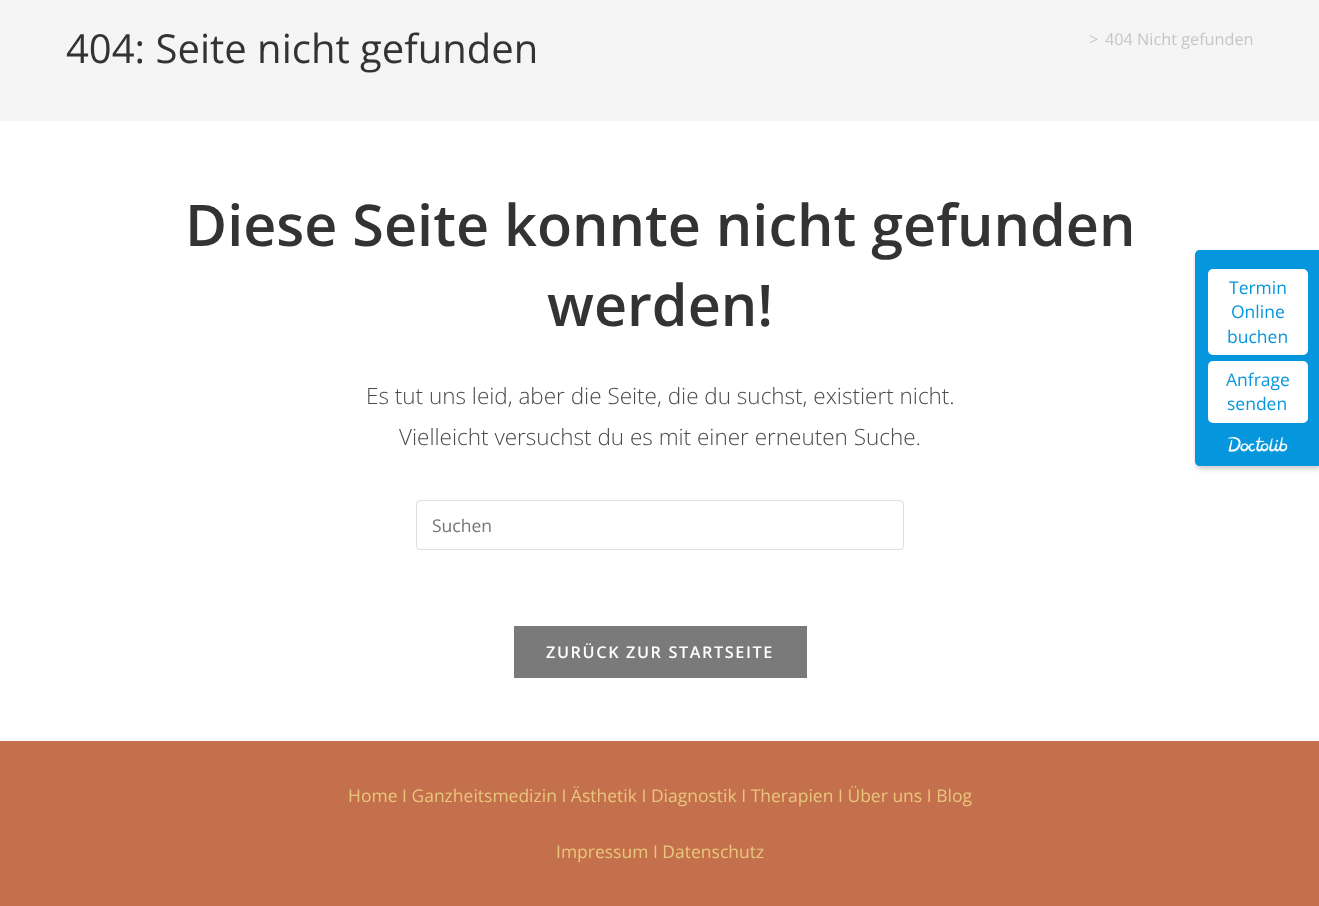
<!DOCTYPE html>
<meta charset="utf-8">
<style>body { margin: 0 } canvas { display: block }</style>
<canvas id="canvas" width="1319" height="906"></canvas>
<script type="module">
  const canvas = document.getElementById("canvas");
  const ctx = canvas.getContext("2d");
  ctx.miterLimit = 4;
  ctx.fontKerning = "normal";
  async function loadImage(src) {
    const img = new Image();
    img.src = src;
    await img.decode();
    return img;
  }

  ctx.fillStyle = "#ffffff";
  ctx.fillRect(0, 0, 1319, 906);
  ctx.fillStyle = "#f5f5f5";
  ctx.fillRect(0, 0, 1319, 121);
  ctx.font = "40px Open Sans";
  ctx.fillStyle = "#333333";
  ctx.fillText("404: Seite nicht gefunden", 66, 63);
  ctx.font = "16.25px Open Sans";
  ctx.fillStyle = "#c6c6c6";
  ctx.fillText(">", 1089, 45);
  ctx.fillText("404 Nicht gefunden", 1105, 45);
  ctx.font = "600 57.5px Open Sans";
  ctx.fillStyle = "#333333";
  ctx.fillText("Diese Seite konnte nicht gefunden", 185, 246);
  ctx.fillText("werden!", 547, 326);
  ctx.font = "300 22.5px Open Sans";
  ctx.fillStyle = "#4a4a4a";
  ctx.fillText("Es tut uns leid, aber die Seite, die du suchst, existiert nicht.", 366, 404);
  ctx.fillText("Vielleicht versuchst du es mit einer erneuten Suche.", 399, 445);
  ctx.beginPath();
  ctx.roundRect(416.5, 500.5, 487, 49, 3.5);
  ctx.strokeStyle = "#dddddd";
  ctx.stroke();
  ctx.font = "17.5px Open Sans";
  ctx.fillStyle = "#757575";
  ctx.fillText("Suchen", 432, 532);
  ctx.fillStyle = "#7a7a7a";
  ctx.fillRect(514, 626, 293, 52);
  ctx.letterSpacing = "1.6px";
  ctx.font = "600 16.25px Open Sans";
  ctx.fillStyle = "#ffffff";
  ctx.fillText("ZURÜCK ZUR STARTSEITE", 546, 658);
  ctx.fillStyle = "#c4704c";
  ctx.fillRect(0, 741, 1319, 165);
  ctx.letterSpacing = "0px";
  ctx.font = "17.5px Open Sans";
  ctx.fillStyle = "#e9c67c";
  ctx.fillText("Home I Ganzheitsmedizin I Ästhetik I Diagnostik I Therapien I Über uns I Blog", 348, 802);
  ctx.fillText("Impressum I Datenschutz", 556, 858);
  ctx.fillStyle = "rgba(0, 0, 0, 0.2)";
  ctx.filter = "blur(2.5px)";
  ctx.beginPath();
  ctx.roundRect(1196, 253, 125, 216, 5);
  ctx.fill();
  ctx.filter = "none";
  ctx.fillStyle = "#0596de";
  ctx.beginPath();
  ctx.moveTo(1200, 250);
  ctx.lineTo(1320, 250);
  ctx.lineTo(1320, 466);
  ctx.lineTo(1200, 466);
  ctx.bezierCurveTo(1197, 466, 1195, 464, 1195, 461);
  ctx.lineTo(1195, 255);
  ctx.bezierCurveTo(1195, 252, 1197, 250, 1200, 250);
  ctx.closePath();
  ctx.fill();
  ctx.fillStyle = "#ffffff";
  ctx.beginPath();
  ctx.roundRect(1208, 269, 100, 86, 5);
  ctx.fill();
  ctx.fillStyle = "#0596de";
  ctx.fillText("Termin", 1229, 294);
  ctx.fillText("Online", 1231, 318);
  ctx.fillText("buchen", 1227, 343);
  ctx.fillStyle = "#ffffff";
  ctx.beginPath();
  ctx.roundRect(1208, 361, 100, 62, 5);
  ctx.fill();
  ctx.fillStyle = "#0596de";
  ctx.fillText("Anfrage", 1226, 386);
  ctx.fillText("senden", 1227, 410);
  ctx.drawImage(await loadImage("img1.png"), 1227, 436, 61, 16);
</script>
